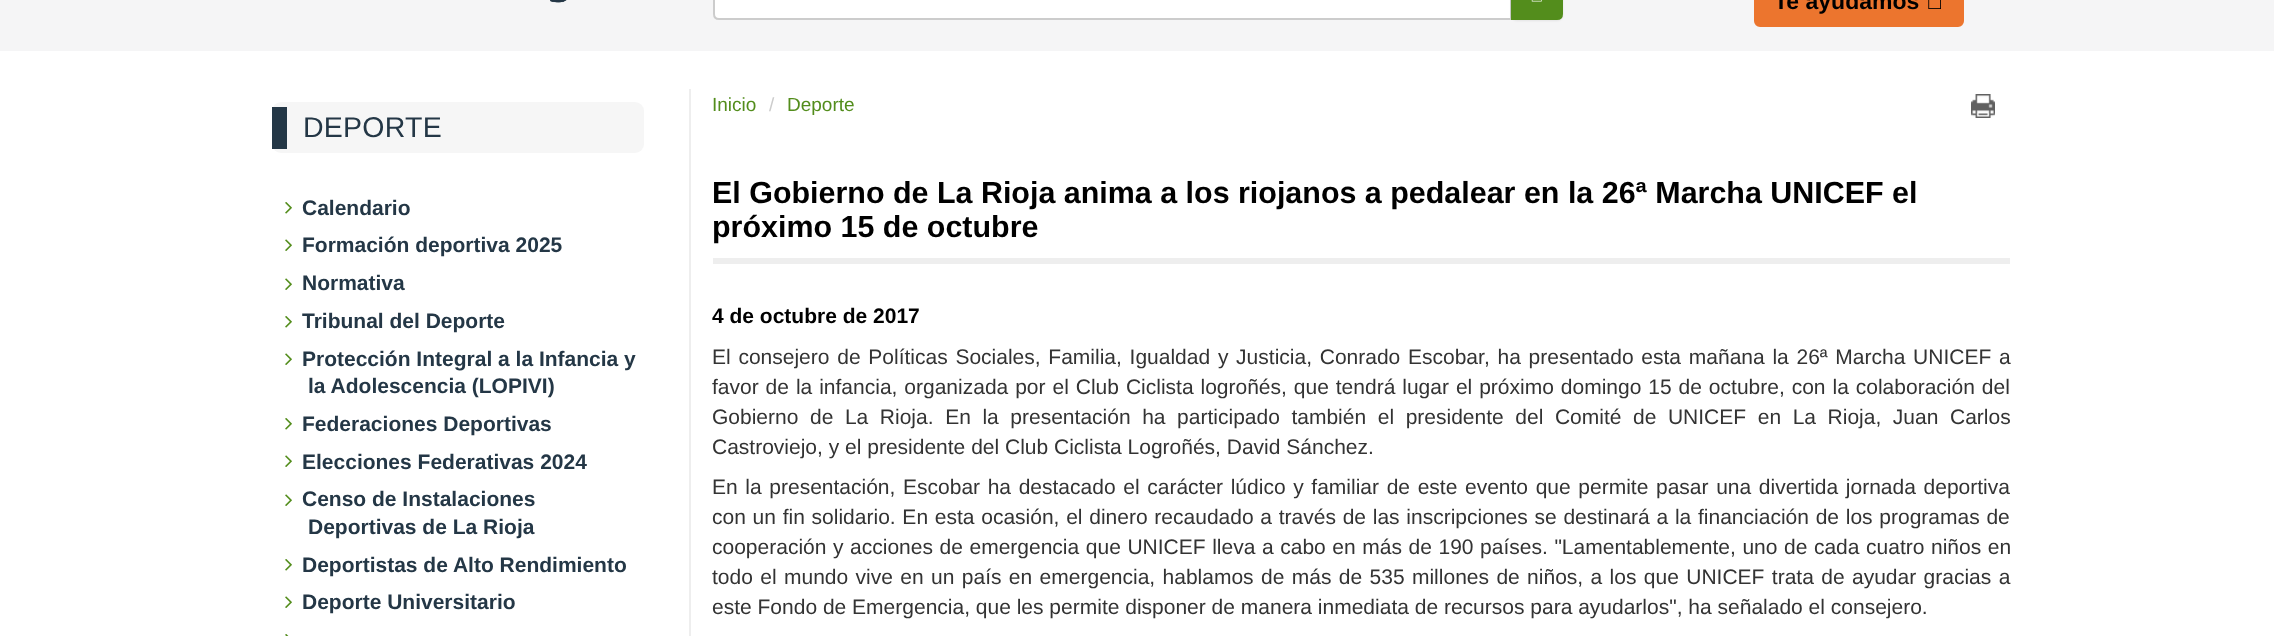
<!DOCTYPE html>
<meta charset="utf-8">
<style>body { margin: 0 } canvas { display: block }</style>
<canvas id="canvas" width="2274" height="636"></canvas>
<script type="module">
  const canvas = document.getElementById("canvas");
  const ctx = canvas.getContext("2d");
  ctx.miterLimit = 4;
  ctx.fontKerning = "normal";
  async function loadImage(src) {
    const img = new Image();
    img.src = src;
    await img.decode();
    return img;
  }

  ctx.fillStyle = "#ffffff";
  ctx.fillRect(0, 0, 2274, 636);
  ctx.fillStyle = "#f5f5f6";
  ctx.fillRect(0, 0, 2274, 51);
  ctx.drawImage(await loadImage("img1.png"), 550, 0, 17, 3);
  ctx.fillStyle = "#ffffff";
  ctx.beginPath();
  ctx.moveTo(719, -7);
  ctx.lineTo(1511, -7);
  ctx.lineTo(1511, 19);
  ctx.lineTo(719, 19);
  ctx.bezierCurveTo(716, 19, 714, 17, 714, 14);
  ctx.lineTo(714, -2);
  ctx.bezierCurveTo(714, -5, 716, -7, 719, -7);
  ctx.closePath();
  ctx.fill();
  ctx.strokeStyle = "#cccccc";
  ctx.lineWidth = 2;
  ctx.stroke();
  ctx.fillStyle = "rgba(0, 0, 0, 0.07)";
  ctx.filter = "blur(1px)";
  ctx.beginPath();
  ctx.roundRect(1511, -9, 52, 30, 6);
  ctx.fill();
  ctx.filter = "none";
  ctx.fillStyle = "#538d1c";
  ctx.beginPath();
  ctx.moveTo(1512, -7);
  ctx.lineTo(1557, -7);
  ctx.bezierCurveTo(1560, -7, 1562, -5, 1562, -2);
  ctx.lineTo(1562, 14);
  ctx.bezierCurveTo(1562, 17, 1560, 19, 1557, 19);
  ctx.lineTo(1512, 19);
  ctx.closePath();
  ctx.fill();
  ctx.strokeStyle = "#538d1c";
  ctx.stroke();
  ctx.drawImage(await loadImage("img2.png"), 1531, 0, 11, 2);
  ctx.fillStyle = "#ec752e";
  ctx.beginPath();
  ctx.roundRect(1755, -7, 208, 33, 5);
  ctx.fill();
  ctx.strokeStyle = "#ec752e";
  ctx.stroke();
  ctx.font = "bold 23px Liberation Sans";
  ctx.fillStyle = "#000000";
  ctx.fillText("Te ayudamos", 1774, 9);
  ctx.drawImage(await loadImage("img3.png"), 1928, 0, 13, 9);
  ctx.fillStyle = "#eeeeee";
  ctx.fillRect(689, 89, 2, 547);
  ctx.fillStyle = "#f6f6f6";
  ctx.beginPath();
  ctx.roundRect(272, 102, 372, 51, 9);
  ctx.fill();
  ctx.fillStyle = "#243746";
  ctx.fillRect(272, 107, 15, 42);
  ctx.letterSpacing = "0.25px";
  ctx.font = "28.5px Liberation Sans";
  ctx.fillText("DEPORTE", 303, 137);
  ctx.drawImage(await loadImage("img4.png"), 285, 202, 7, 12);
  ctx.letterSpacing = "0px";
  ctx.font = "bold 21px Liberation Sans";
  ctx.fillText("Calendario", 302, 215);
  ctx.drawImage(await loadImage("img5.png"), 285, 239, 7, 12);
  ctx.fillText("Formación deportiva 2025", 302, 252);
  ctx.drawImage(await loadImage("img5.png"), 285, 278, 7, 12);
  ctx.fillText("Normativa", 302, 290);
  ctx.drawImage(await loadImage("img4.png"), 285, 316, 7, 12);
  ctx.fillText("Tribunal del Deporte", 302, 328);
  ctx.drawImage(await loadImage("img5.png"), 285, 353, 7, 12);
  ctx.fillText("Protección Integral a la Infancia y", 302, 366);
  ctx.fillText("la Adolescencia (LOPIVI)", 308, 393);
  ctx.drawImage(await loadImage("img4.png"), 285, 418, 7, 12);
  ctx.fillText("Federaciones Deportivas", 302, 431);
  ctx.drawImage(await loadImage("img5.png"), 285, 455, 7, 12);
  ctx.fillText("Elecciones Federativas 2024", 302, 469);
  ctx.drawImage(await loadImage("img5.png"), 285, 494, 7, 12);
  ctx.fillText("Censo de Instalaciones", 302, 506);
  ctx.fillText("Deportivas de La Rioja", 308, 534);
  ctx.drawImage(await loadImage("img4.png"), 285, 559, 7, 12);
  ctx.fillText("Deportistas de Alto Rendimiento", 302, 572);
  ctx.drawImage(await loadImage("img5.png"), 285, 596, 7, 12);
  ctx.fillText("Deporte Universitario", 302, 609);
  ctx.drawImage(await loadImage("img6.png"), 285, 634, 4, 2);
  ctx.font = "19px Liberation Sans";
  ctx.fillStyle = "#538d1c";
  ctx.fillText("Inicio", 712, 111);
  ctx.fillStyle = "#cccccc";
  ctx.fillText("/", 769, 111);
  ctx.fillStyle = "#538d1c";
  ctx.fillText("Deporte", 787, 111);
  ctx.drawImage(await loadImage("img7.png"), 1971, 94, 24, 24);
  ctx.fillStyle = "#eeeeee";
  ctx.fillRect(713, 258, 1297, 6);
  ctx.font = "bold 30.45px Liberation Sans";
  ctx.fillStyle = "#000000";
  ctx.fillText("El Gobierno de La Rioja anima a los riojanos a pedalear en la 26ª Marcha UNICEF el", 712, 203);
  ctx.fillText("próximo 15 de octubre", 712, 237);
  ctx.font = "bold 21px Liberation Sans";
  ctx.fillText("4 de octubre de 2017", 712, 323);
  ctx.wordSpacing = "1.9px";
  ctx.font = "21px Liberation Sans";
  ctx.fillStyle = "#333333";
  ctx.fillText("El consejero de Políticas Sociales, Familia, Igualdad y Justicia, Conrado Escobar, ha presentado esta mañana la 26ª Marcha UNICEF a", 712, 364);
  ctx.wordSpacing = "1.1px";
  ctx.fillText("favor de la infancia, organizada por el Club Ciclista logroñés, que tendrá lugar el próximo domingo 15 de octubre, con la colaboración del", 712, 394);
  ctx.wordSpacing = "5.75px";
  ctx.fillText("Gobierno de La Rioja. En la presentación ha participado también el presidente del Comité de UNICEF en La Rioja, Juan Carlos", 712, 424);
  ctx.wordSpacing = "0px";
  ctx.fillText("Castroviejo, y el presidente del Club Ciclista Logroñés, David Sánchez.", 712, 454);
  ctx.wordSpacing = "1.8px";
  ctx.fillText("En la presentación, Escobar ha destacado el carácter lúdico y familiar de este evento que permite pasar una divertida jornada deportiva", 712, 494);
  ctx.wordSpacing = "0.9px";
  ctx.fillText("con un fin solidario. En esta ocasión, el dinero recaudado a través de las inscripciones se destinará a la financiación de los programas de", 712, 524);
  ctx.wordSpacing = "0.75px";
  ctx.fillText("cooperación y acciones de emergencia que UNICEF lleva a cabo en más de 190 países. \"Lamentablemente, uno de cada cuatro niños en", 712, 554);
  ctx.wordSpacing = "1.55px";
  ctx.fillText("todo el mundo vive en un país en emergencia, hablamos de más de 535 millones de niños, a los que UNICEF trata de ayudar gracias a", 712, 584);
  ctx.wordSpacing = "0px";
  ctx.fillText("este Fondo de Emergencia, que les permite disponer de manera inmediata de recursos para ayudarlos\", ha señalado el consejero.", 712, 614);
</script>
